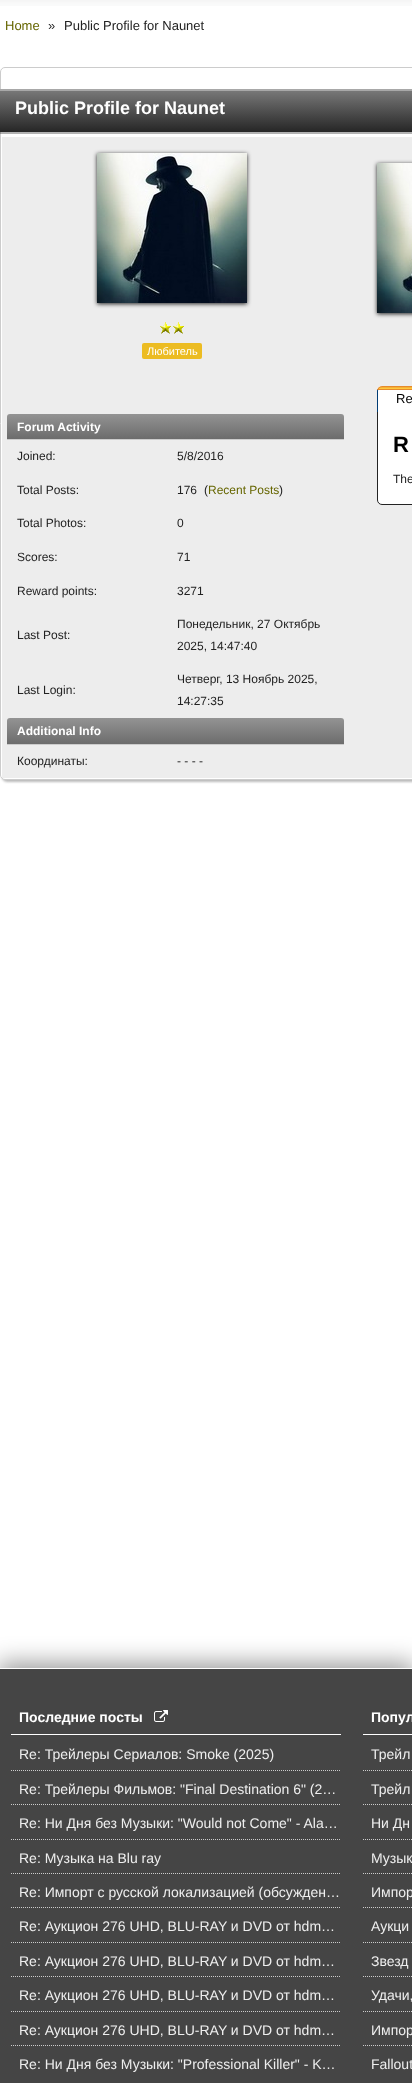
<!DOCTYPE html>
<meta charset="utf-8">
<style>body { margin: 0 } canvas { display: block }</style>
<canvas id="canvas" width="412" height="2083"></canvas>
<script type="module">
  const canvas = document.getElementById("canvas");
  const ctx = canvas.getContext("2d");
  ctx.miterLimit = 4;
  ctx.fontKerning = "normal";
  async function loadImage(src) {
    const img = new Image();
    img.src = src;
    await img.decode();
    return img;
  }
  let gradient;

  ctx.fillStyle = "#ffffff";
  ctx.fillRect(0, 0, 412, 2083);
  ctx.drawImage(await loadImage("img1.png"), 0, 0, 412, 6);
  ctx.font = "13px Liberation Sans";
  ctx.fillStyle = "#666600";
  ctx.fillText("Home", 5, 30);
  ctx.fillStyle = "#222222";
  ctx.fillText("»", 48, 30);
  ctx.fillText("Public Profile for Naunet", 64, 30);
  ctx.fillStyle = "#bbbbbb";
  ctx.filter = "blur(1px)";
  ctx.beginPath();
  ctx.roundRect(2, 69, 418, 713, 5);
  ctx.fill();
  ctx.filter = "none";
  ctx.fillStyle = "#ffffff";
  ctx.beginPath();
  ctx.roundRect(0.5, 67.5, 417, 712, 4.5);
  ctx.fill();
  ctx.strokeStyle = "#cccccc";
  ctx.stroke();
  ctx.fillStyle = "rgba(0, 0, 0, 0.3)";
  ctx.beginPath();
  ctx.moveTo(-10, 131);
  ctx.lineTo(-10, 134);
  ctx.lineTo(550, 134);
  ctx.lineTo(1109, 134);
  ctx.lineTo(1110, 134);
  ctx.lineTo(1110, 131);
  ctx.lineTo(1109, 132);
  ctx.lineTo(-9, 132);
  ctx.closePath();
  ctx.fill();
  gradient = ctx.createLinearGradient(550, 89, 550, 132);
  gradient.addColorStop(0, "#7b7b7b");
  gradient.addColorStop(1, "#262626");
  ctx.fillStyle = gradient;
  ctx.fillRect(0, 91, 412, 41);
  ctx.fillStyle = "#a8a8a8";
  ctx.beginPath();
  ctx.moveTo(-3, 91);
  ctx.lineTo(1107, 91);
  ctx.lineTo(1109, 91);
  ctx.bezierCurveTo(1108, 90, 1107, 89, 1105, 89);
  ctx.lineTo(-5, 89);
  ctx.bezierCurveTo(-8, 89, -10, 91, -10, 94);
  ctx.lineTo(-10, 131);
  ctx.bezierCurveTo(-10, 132, -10, 132, -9, 132);
  ctx.lineTo(-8, 132);
  ctx.lineTo(-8, 96);
  ctx.bezierCurveTo(-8, 93, -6, 91, -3, 91);
  ctx.closePath();
  ctx.fill();
  ctx.font = "bold 18px Liberation Sans";
  ctx.fillStyle = "#ffffff";
  ctx.fillText("Public Profile for Naunet", 15, 114);
  ctx.fillStyle = "#ededed";
  ctx.fillRect(2, 137, 410, 641);
  ctx.fillStyle = "#232323";
  ctx.filter = "blur(2px)";
  ctx.beginPath();
  ctx.rect(97, 154, 150, 150);
  ctx.fill();
  ctx.filter = "none";
  ctx.drawImage(await loadImage("img2.png"), 97, 153, 150, 150);
  ctx.drawImage(await loadImage("img3.png"), 160, 322, 24, 12);
  ctx.fillStyle = "#ecbc22";
  ctx.beginPath();
  ctx.roundRect(142, 343, 60, 16, 2);
  ctx.fill();
  ctx.font = "11px Liberation Sans";
  ctx.fillStyle = "#ffffff";
  ctx.fillText("Любитель", 147, 355);
  gradient = ctx.createLinearGradient(176, 414, 176, 439);
  gradient.addColorStop(0, "#939393");
  gradient.addColorStop(1, "#6c6c6c");
  ctx.fillStyle = gradient;
  ctx.beginPath();
  ctx.roundRect(7, 414, 337, 25, [3, 3, 0, 0]);
  ctx.fill();
  ctx.fillStyle = "#cccccc";
  ctx.fillRect(7, 439, 337, 1);
  ctx.font = "bold 12px Liberation Sans";
  ctx.fillStyle = "#ffffff";
  ctx.fillText("Forum Activity", 17, 431);
  ctx.font = "12px Liberation Sans";
  ctx.fillStyle = "#222222";
  ctx.fillText("Joined:", 17, 460);
  ctx.fillText("5/8/2016", 177, 460);
  ctx.fillText("Total Posts:", 17, 494);
  ctx.fillText("176", 177, 494);
  ctx.fillText("(", 204, 494);
  ctx.fillStyle = "#666600";
  ctx.fillText("Recent Posts", 208, 494);
  ctx.fillStyle = "#222222";
  ctx.fillText(")", 279, 494);
  ctx.fillText("Total Photos:", 17, 527);
  ctx.fillText("0", 177, 527);
  ctx.fillText("Scores:", 17, 561);
  ctx.fillText("71", 177, 561);
  ctx.fillText("Reward points:", 17, 595);
  ctx.fillText("3271", 177, 595);
  ctx.fillText("Last Post:", 17, 639);
  ctx.fillText("Понедельник, 27 Октябрь", 177, 628);
  ctx.fillText("2025, 14:47:40", 177, 650);
  ctx.fillText("Last Login:", 17, 694);
  ctx.fillText("Четверг, 13 Ноябрь 2025,", 177, 683);
  ctx.fillText("14:27:35", 177, 705);
  gradient = ctx.createLinearGradient(176, 718, 176, 744);
  gradient.addColorStop(0, "#939393");
  gradient.addColorStop(1, "#6c6c6c");
  ctx.fillStyle = gradient;
  ctx.beginPath();
  ctx.roundRect(7, 718, 337, 26, [3, 3, 0, 0]);
  ctx.fill();
  ctx.fillStyle = "#cccccc";
  ctx.fillRect(7, 744, 337, 1);
  ctx.font = "bold 12px Liberation Sans";
  ctx.fillStyle = "#ffffff";
  ctx.fillText("Additional Info", 17, 735);
  ctx.font = "12px Liberation Sans";
  ctx.fillStyle = "#222222";
  ctx.fillText("Координаты:", 17, 765);
  ctx.fillText("- - - -", 177, 765);
  ctx.fillStyle = "#232323";
  ctx.filter = "blur(2px)";
  ctx.beginPath();
  ctx.rect(377, 164, 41, 150);
  ctx.fill();
  ctx.filter = "none";
  ctx.drawImage(await loadImage("img4.png"), 377, 163, 35, 150);
  ctx.fillStyle = "#ffffff";
  ctx.beginPath();
  ctx.moveTo(377.5, 411.5);
  ctx.lineTo(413, 411.5);
  ctx.bezierCurveTo(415.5, 411.5, 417.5, 413.5, 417.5, 416);
  ctx.lineTo(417.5, 500);
  ctx.bezierCurveTo(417.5, 502.5, 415.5, 504.5, 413, 504.5);
  ctx.lineTo(382, 504.5);
  ctx.bezierCurveTo(379.5, 504.5, 377.5, 502.5, 377.5, 500);
  ctx.closePath();
  ctx.fill();
  ctx.strokeStyle = "#232323";
  ctx.stroke();
  ctx.drawImage(await loadImage("img5.png"), 377, 386, 9, 26);
  ctx.drawImage(await loadImage("img6.png"), 386, 386, 26, 26);
  ctx.font = "13px Liberation Sans";
  ctx.fillStyle = "#000000";
  ctx.fillText("Re", 396, 403);
  ctx.font = "bold 22px Liberation Sans";
  ctx.fillText("R", 393, 452);
  ctx.font = "12px Liberation Sans";
  ctx.fillStyle = "#222222";
  ctx.fillText("The", 393, 483);
  ctx.fillStyle = "rgba(0, 0, 0, 0.4)";
  ctx.filter = "blur(12.5px)";
  ctx.beginPath();
  ctx.rect(-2, 1663, 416, 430);
  ctx.fill();
  ctx.filter = "none";
  ctx.fillStyle = "#454545";
  ctx.fillRect(0, 1669, 412, 414);
  ctx.fillStyle = "#ffffff";
  ctx.fillRect(0, 1668, 412, 1);
  ctx.fillRect(11, 1734, 330, 1);
  ctx.font = "bold 14px Liberation Sans";
  ctx.fillText("Последние посты", 19, 1722);
  ctx.drawImage(await loadImage("img7.png"), 154, 1710, 14, 12);
  ctx.beginPath();
  ctx.moveTo(11, 1770.5);
  ctx.lineTo(341, 1770.5);
  ctx.strokeStyle = "#cccccc";
  ctx.setLineDash([1, 1]);
  ctx.stroke();
  ctx.font = "14px Liberation Sans";
  ctx.fillStyle = "#eeeeee";
  ctx.fillText("Re: Трейлеры Сериалов: Smoke (2025)", 19, 1759);
  ctx.beginPath();
  ctx.moveTo(11, 1804.5);
  ctx.lineTo(341, 1804.5);
  ctx.stroke();
  ctx.fillText("Re: Трейлеры Фильмов: \"Final Destination 6\" (2…", 19, 1794);
  ctx.beginPath();
  ctx.moveTo(11, 1839.5);
  ctx.lineTo(341, 1839.5);
  ctx.stroke();
  ctx.fillText("Re: Ни Дня без Музыки: \"Would not Come\" - Ala…", 19, 1828);
  ctx.beginPath();
  ctx.moveTo(11, 1873.5);
  ctx.lineTo(341, 1873.5);
  ctx.stroke();
  ctx.fillText("Re: Музыка на Blu ray", 19, 1863);
  ctx.beginPath();
  ctx.moveTo(11, 1907.5);
  ctx.lineTo(341, 1907.5);
  ctx.stroke();
  ctx.fillText("Re: Импорт с русской локализацией (обсужден…", 19, 1897);
  ctx.beginPath();
  ctx.moveTo(11, 1942.5);
  ctx.lineTo(341, 1942.5);
  ctx.stroke();
  ctx.fillText("Re: Аукцион 276 UHD, BLU-RAY и DVD от hdm…", 19, 1931);
  ctx.beginPath();
  ctx.moveTo(11, 1976.5);
  ctx.lineTo(341, 1976.5);
  ctx.stroke();
  ctx.fillText("Re: Аукцион 276 UHD, BLU-RAY и DVD от hdm…", 19, 1966);
  ctx.beginPath();
  ctx.moveTo(11, 2011.5);
  ctx.lineTo(341, 2011.5);
  ctx.stroke();
  ctx.fillText("Re: Аукцион 276 UHD, BLU-RAY и DVD от hdm…", 19, 2000);
  ctx.beginPath();
  ctx.moveTo(11, 2045.5);
  ctx.lineTo(341, 2045.5);
  ctx.stroke();
  ctx.fillText("Re: Аукцион 276 UHD, BLU-RAY и DVD от hdm…", 19, 2035);
  ctx.fillText("Re: Ни Дня без Музыки: \"Professional Killer\" - K…", 19, 2069);
  ctx.fillStyle = "#ffffff";
  ctx.fillRect(363, 1734, 49, 1);
  ctx.font = "bold 14px Liberation Sans";
  ctx.fillText("Попул", 371, 1722);
  ctx.beginPath();
  ctx.moveTo(363, 1770.5);
  ctx.lineTo(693, 1770.5);
  ctx.stroke();
  ctx.font = "14px Liberation Sans";
  ctx.fillStyle = "#eeeeee";
  ctx.fillText("Трейл", 371, 1759);
  ctx.beginPath();
  ctx.moveTo(363, 1804.5);
  ctx.lineTo(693, 1804.5);
  ctx.stroke();
  ctx.fillText("Трейл", 371, 1794);
  ctx.beginPath();
  ctx.moveTo(363, 1839.5);
  ctx.lineTo(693, 1839.5);
  ctx.stroke();
  ctx.fillText("Ни Дн", 371, 1828);
  ctx.beginPath();
  ctx.moveTo(363, 1873.5);
  ctx.lineTo(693, 1873.5);
  ctx.stroke();
  ctx.fillText("Музык", 371, 1863);
  ctx.beginPath();
  ctx.moveTo(363, 1907.5);
  ctx.lineTo(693, 1907.5);
  ctx.stroke();
  ctx.fillText("Импор", 371, 1897);
  ctx.beginPath();
  ctx.moveTo(363, 1942.5);
  ctx.lineTo(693, 1942.5);
  ctx.stroke();
  ctx.fillText("Аукци", 371, 1931);
  ctx.beginPath();
  ctx.moveTo(363, 1976.5);
  ctx.lineTo(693, 1976.5);
  ctx.stroke();
  ctx.fillText("Звезд", 371, 1966);
  ctx.beginPath();
  ctx.moveTo(363, 2011.5);
  ctx.lineTo(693, 2011.5);
  ctx.stroke();
  ctx.fillText("Удачи,", 371, 2000);
  ctx.beginPath();
  ctx.moveTo(363, 2045.5);
  ctx.lineTo(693, 2045.5);
  ctx.stroke();
  ctx.fillText("Импор", 371, 2035);
  ctx.fillText("Fallout", 371, 2069);
</script>
